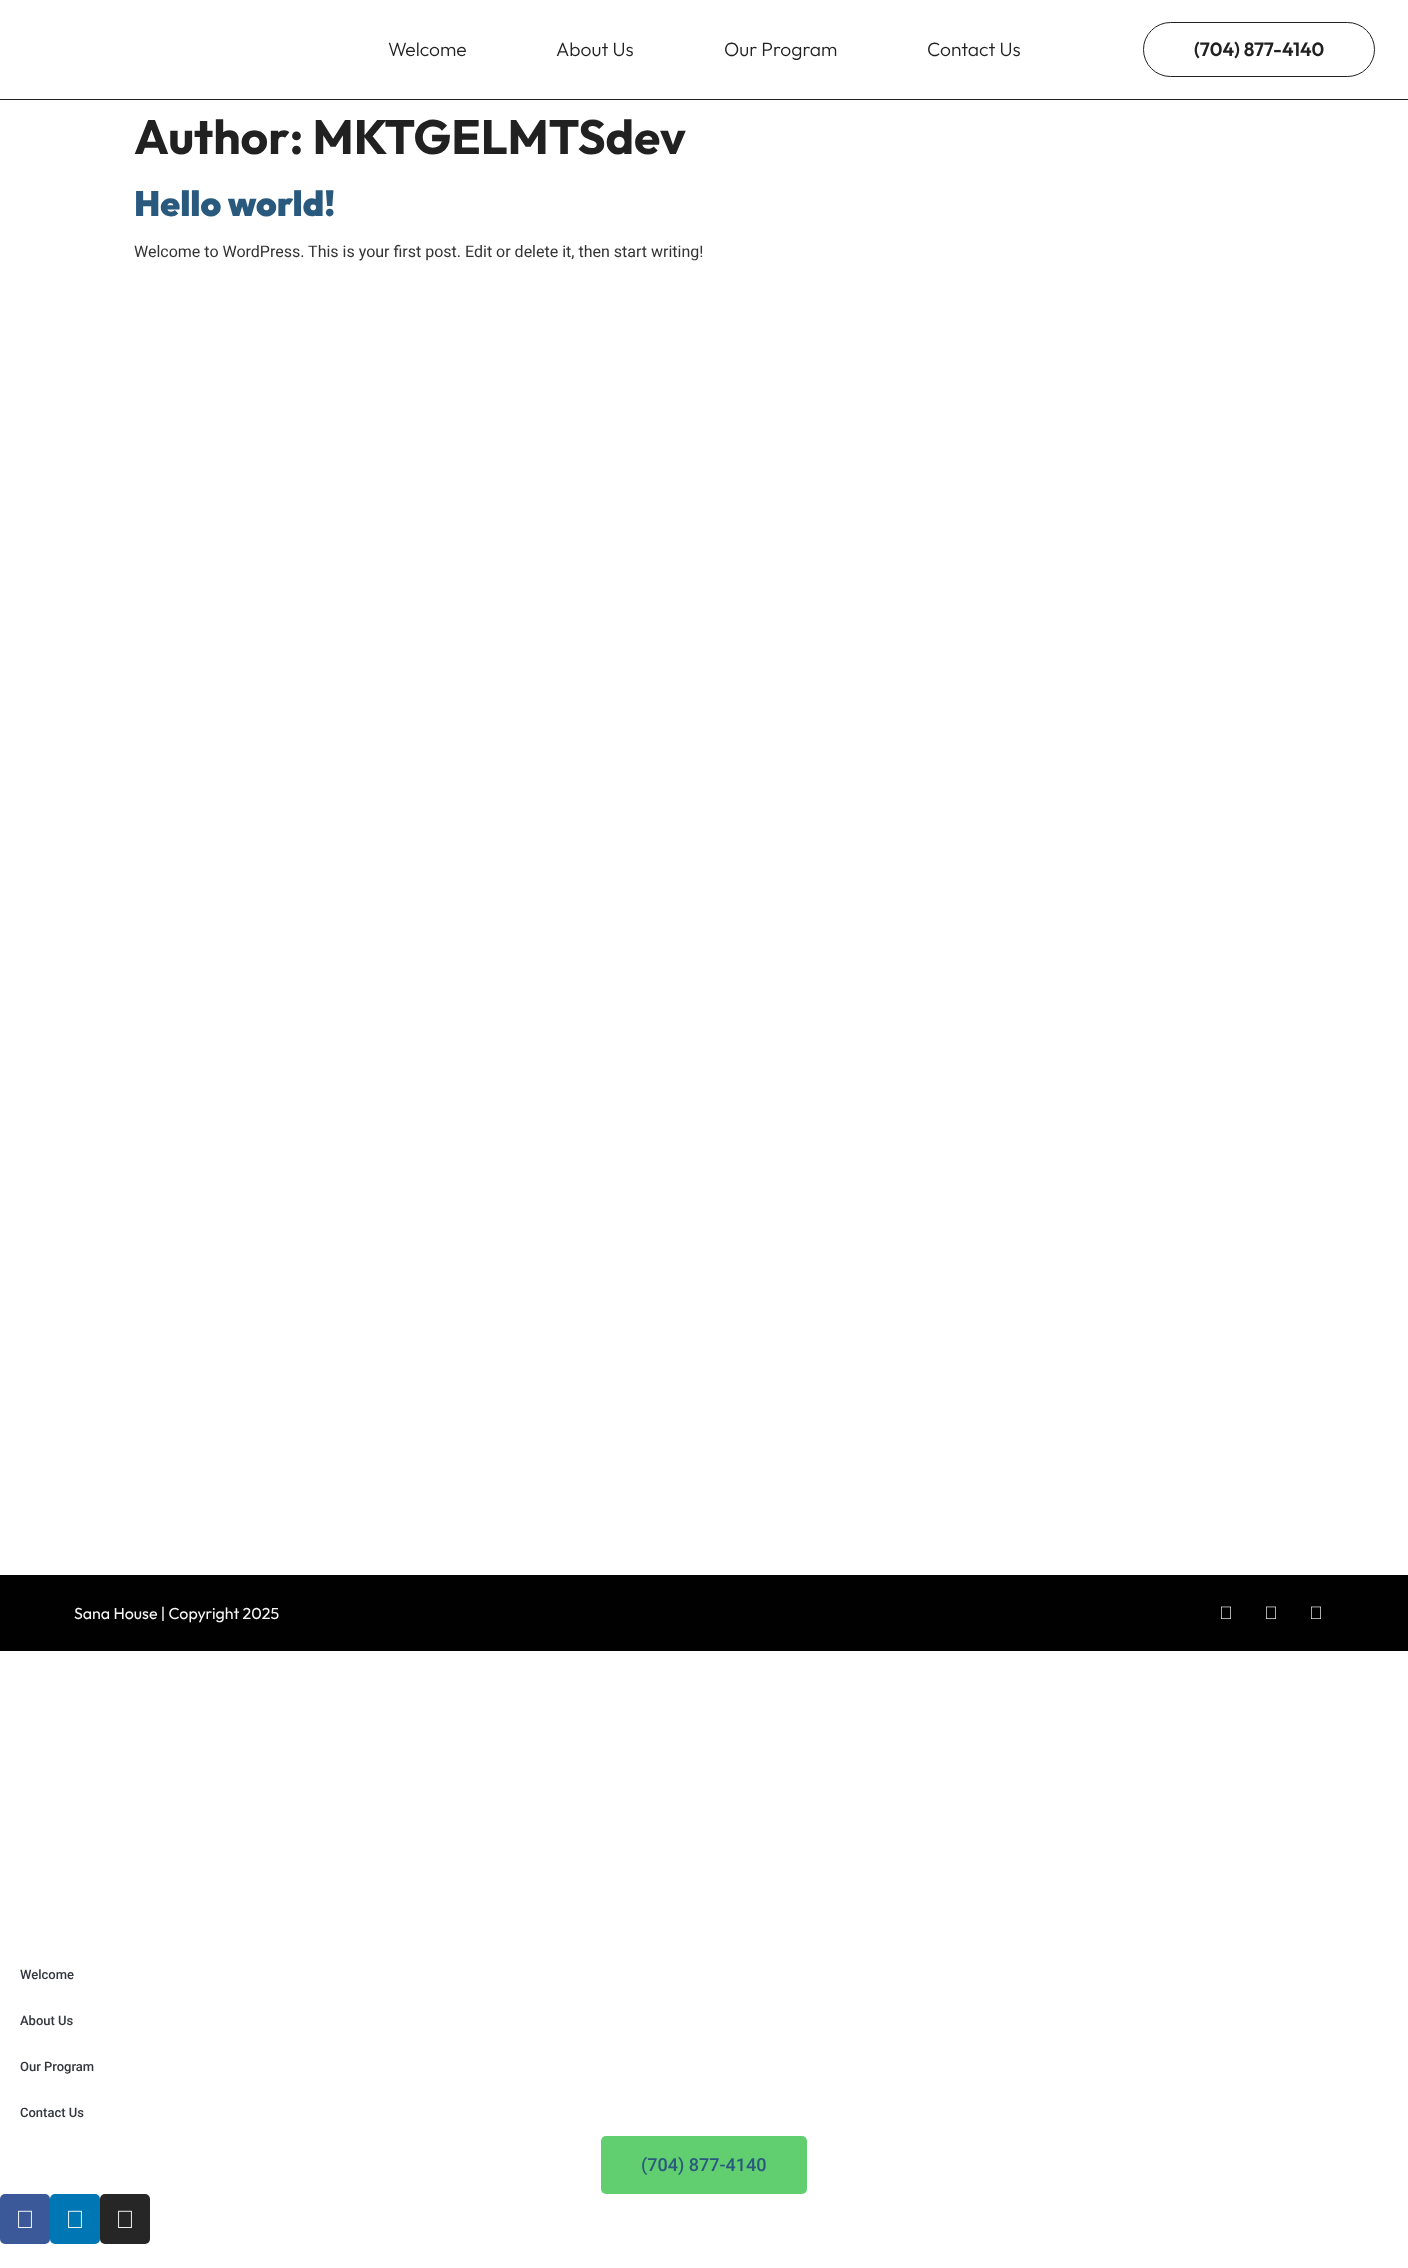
<!DOCTYPE html>
<meta charset="utf-8">
<style>body { margin: 0 } canvas { display: block }</style>
<canvas id="canvas" width="1408" height="2268"></canvas>
<script type="module">
  const canvas = document.getElementById("canvas");
  const ctx = canvas.getContext("2d");
  ctx.miterLimit = 4;
  ctx.fontKerning = "normal";
  async function loadImage(src) {
    const img = new Image();
    img.src = src;
    await img.decode();
    return img;
  }

  ctx.fillStyle = "#ffffff";
  ctx.fillRect(0, 0, 1408, 2268);
  ctx.fillStyle = "#212121";
  ctx.fillRect(0, 99, 1408, 1);
  ctx.font = "300 19.25px Outfit";
  ctx.fillText("Welcome", 388, 56);
  ctx.fillText("About Us", 556, 56);
  ctx.fillText("Our Program", 724, 56);
  ctx.fillText("Contact Us", 927, 56);
  ctx.beginPath();
  ctx.roundRect(1143.5, 22.5, 231, 54, 27);
  ctx.strokeStyle = "#212121";
  ctx.stroke();
  ctx.font = "600 19.25px Outfit";
  ctx.fillText("(704) 877-4140", 1194, 56);
  ctx.font = "bold 48px Outfit";
  ctx.fillText("Author: MKTGELMTSdev", 134, 154);
  ctx.font = "900 35.25px Outfit";
  ctx.fillStyle = "#295a7e";
  ctx.fillText("Hello world!", 134, 216);
  ctx.font = "16px Roboto";
  ctx.fillStyle = "#333333";
  ctx.fillText("Welcome to WordPress. This is your first post. Edit or delete it, then start writing!", 134, 257);
  ctx.fillStyle = "#010101";
  ctx.fillRect(0, 1575, 1408, 76);
  ctx.font = "16px Outfit";
  ctx.fillStyle = "#f6f6f6";
  ctx.fillText("Sana House | Copyright 2025", 74, 1619);
  ctx.drawImage(await loadImage("img1.png"), 1221, 1606, 10, 13);
  ctx.drawImage(await loadImage("img1.png"), 1266, 1606, 10, 13);
  ctx.drawImage(await loadImage("img1.png"), 1311, 1606, 10, 13);
  ctx.font = "500 13px Roboto";
  ctx.fillStyle = "#33373d";
  ctx.fillText("Welcome", 20, 1979);
  ctx.fillText("About Us", 20, 2025);
  ctx.fillText("Our Program", 20, 2071);
  ctx.fillText("Contact Us", 20, 2117);
  ctx.fillStyle = "#61ce70";
  ctx.beginPath();
  ctx.roundRect(601, 2136, 206, 58, 5);
  ctx.fill();
  ctx.font = "500 18px Roboto";
  ctx.fillStyle = "#295a7e";
  ctx.fillText("(704) 877-4140", 641, 2171);
  ctx.fillStyle = "#3b5998";
  ctx.beginPath();
  ctx.roundRect(0, 2194, 50, 50, 5);
  ctx.fill();
  ctx.drawImage(await loadImage("img2.png"), 18, 2210, 14, 18);
  ctx.fillStyle = "#0077b5";
  ctx.beginPath();
  ctx.roundRect(50, 2194, 50, 50, 5);
  ctx.fill();
  ctx.drawImage(await loadImage("img3.png"), 68, 2210, 14, 18);
  ctx.fillStyle = "#262626";
  ctx.beginPath();
  ctx.roundRect(100, 2194, 50, 50, 5);
  ctx.fill();
  ctx.drawImage(await loadImage("img4.png"), 118, 2210, 14, 18);
</script>
